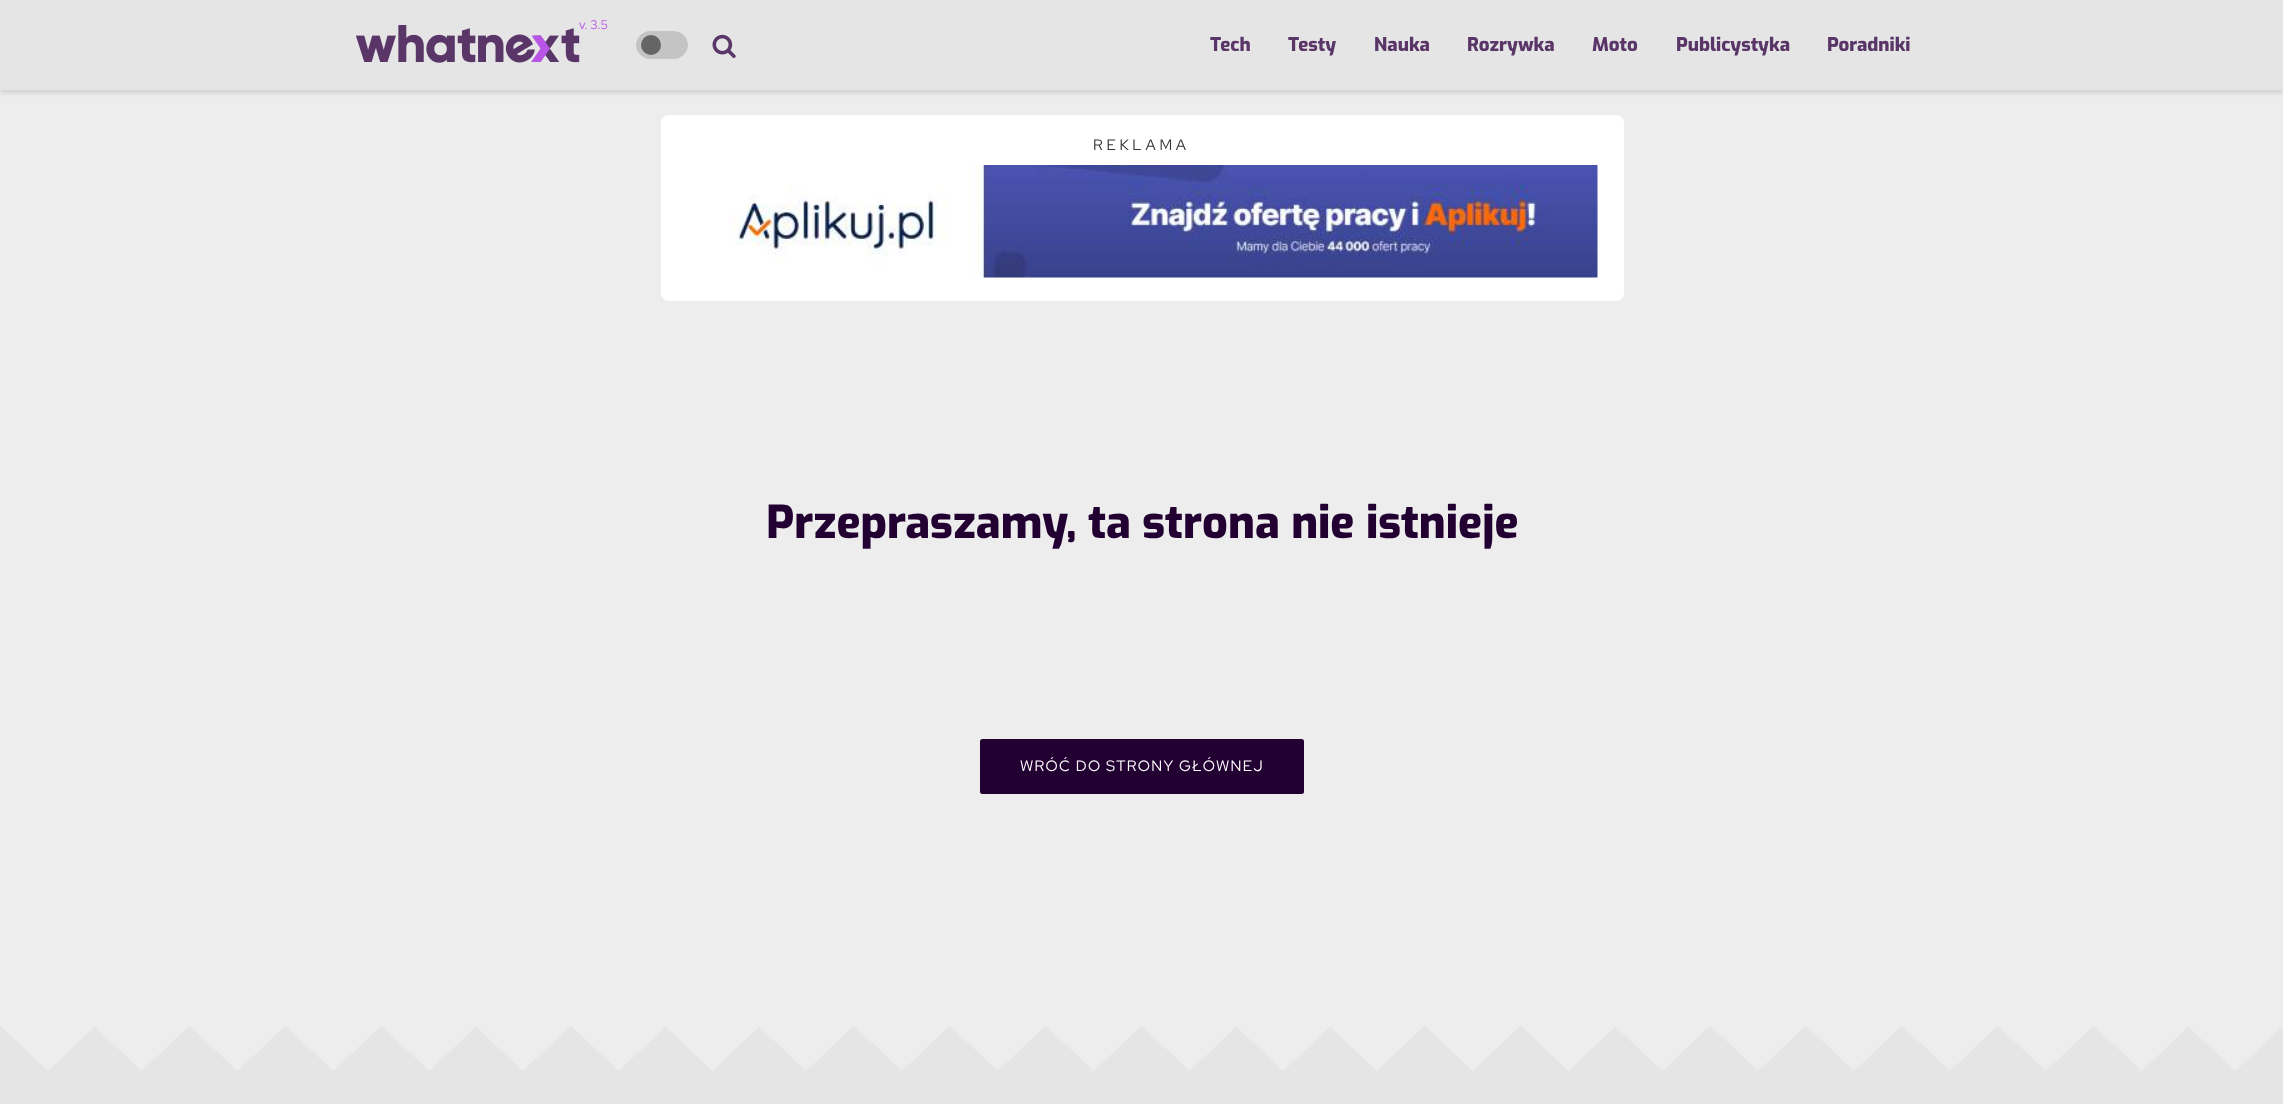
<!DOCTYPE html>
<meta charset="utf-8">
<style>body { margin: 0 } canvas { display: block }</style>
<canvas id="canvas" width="2283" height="1104"></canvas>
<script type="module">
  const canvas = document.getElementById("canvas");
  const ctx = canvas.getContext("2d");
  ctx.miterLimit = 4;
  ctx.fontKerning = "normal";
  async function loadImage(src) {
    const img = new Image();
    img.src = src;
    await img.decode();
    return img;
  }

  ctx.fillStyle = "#ededed";
  ctx.fillRect(0, 0, 2283, 1104);
  ctx.fillStyle = "rgba(0, 0, 0, 0.12)";
  ctx.filter = "blur(2.5px)";
  ctx.beginPath();
  ctx.rect(0, 3, 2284, 90);
  ctx.fill();
  ctx.filter = "none";
  ctx.fillStyle = "#e5e5e5";
  ctx.fillRect(0, 0, 2283, 90);
  ctx.drawImage(await loadImage("img1.png"), 355, 25, 225, 38);
  ctx.font = "12.5px Red Hat Display";
  ctx.fillStyle = "#b955e6";
  ctx.fillText("v. 3.5", 579, 29);
  ctx.fillStyle = "#c4c4c4";
  ctx.beginPath();
  ctx.roundRect(636.5, 31.5, 51, 27, 13.5);
  ctx.fill();
  ctx.strokeStyle = "#c4c4c4";
  ctx.stroke();
  ctx.fillStyle = "#656565";
  ctx.beginPath();
  ctx.arc(651, 45, 10, 0, Math.PI * 2);
  ctx.fill();
  ctx.drawImage(await loadImage("img2.png"), 712, 34, 24, 24);
  ctx.font = "800 18.75px Exo";
  ctx.fillStyle = "#593568";
  ctx.fillText("Tech", 1210, 51);
  ctx.fillText("Testy", 1288, 51);
  ctx.fillText("Nauka", 1374, 51);
  ctx.fillText("Rozrywka", 1467, 51);
  ctx.fillText("Moto", 1592, 51);
  ctx.fillText("Publicystyka", 1676, 51);
  ctx.fillText("Poradniki", 1827, 51);
  ctx.fillStyle = "#ffffff";
  ctx.beginPath();
  ctx.roundRect(661, 115, 963, 186, 8);
  ctx.fill();
  ctx.letterSpacing = "3.75px";
  ctx.font = "15px Red Hat Display";
  ctx.fillStyle = "#333333";
  ctx.fillText("REKLAMA", 1093, 150);
  ctx.drawImage(await loadImage("img3.png"), 728, 165, 870, 113);
  ctx.letterSpacing = "0px";
  ctx.font = "800 45px Exo";
  ctx.fillStyle = "#230032";
  ctx.fillText("Przepraszamy, ta strona nie istnieje", 766, 538);
  ctx.beginPath();
  ctx.roundRect(980, 739, 324, 55, 2.5);
  ctx.fill();
  ctx.letterSpacing = "1.35px";
  ctx.font = "15px Red Hat Display";
  ctx.fillStyle = "#ffffff";
  ctx.fillText("WRÓĆ DO STRONY GŁÓWNEJ", 1020, 771);
  ctx.fillStyle = "#e5e5e5";
  ctx.fillRect(0, 1026, 2283, 78);
  ctx.drawImage(await loadImage("img4.png"), 1, 1026, 2281, 45);
</script>
